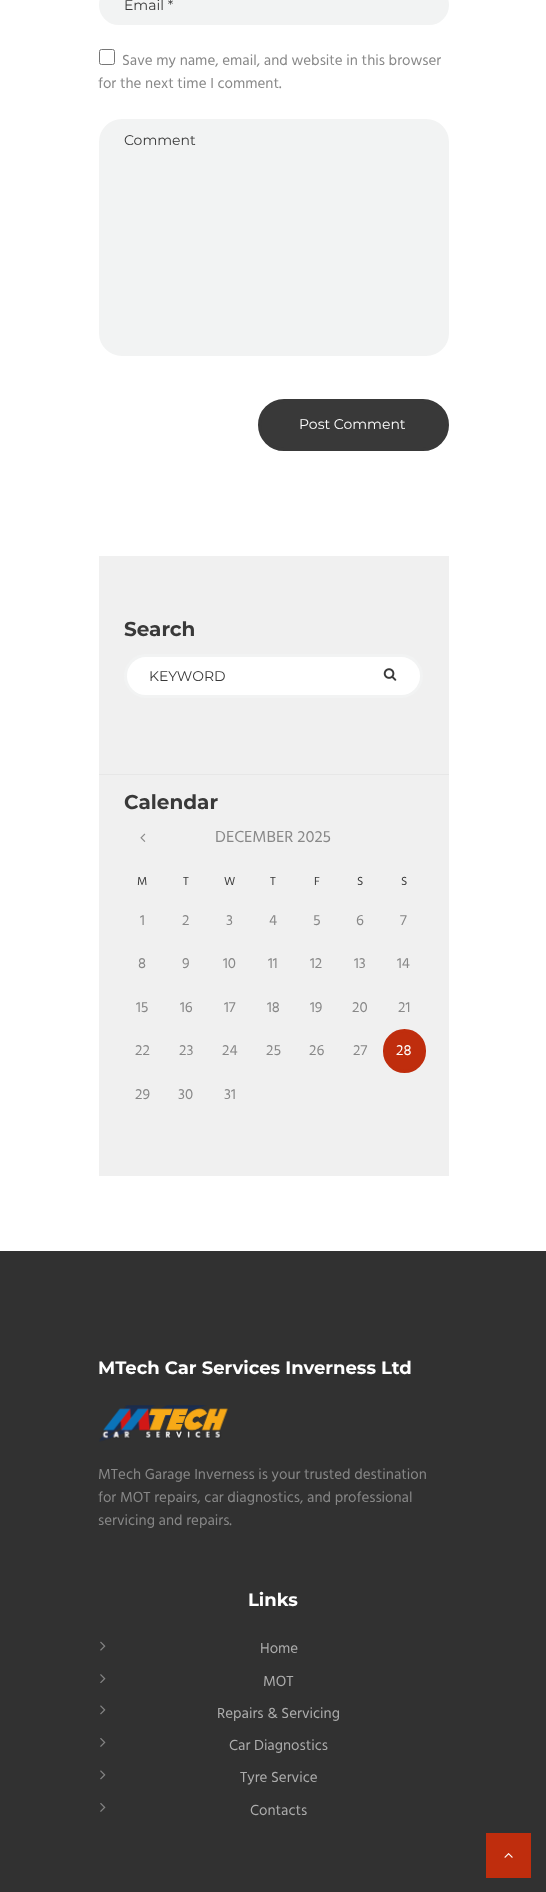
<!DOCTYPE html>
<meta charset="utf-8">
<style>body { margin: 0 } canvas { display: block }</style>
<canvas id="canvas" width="546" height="1892"></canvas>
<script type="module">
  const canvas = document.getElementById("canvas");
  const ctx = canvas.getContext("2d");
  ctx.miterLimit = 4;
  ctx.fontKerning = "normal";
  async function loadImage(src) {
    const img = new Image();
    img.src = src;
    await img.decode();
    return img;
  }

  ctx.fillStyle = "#ffffff";
  ctx.fillRect(0, 0, 546, 1892);
  ctx.fillStyle = "#f2f3f3";
  ctx.beginPath();
  ctx.roundRect(100.5, -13.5, 347, 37, 18.5);
  ctx.fill();
  ctx.strokeStyle = "#f2f3f3";
  ctx.lineWidth = 3;
  ctx.stroke();
  ctx.font = "14px Montserrat";
  ctx.fillStyle = "#393939";
  ctx.fillText("Email *", 124, 10);
  ctx.beginPath();
  ctx.roundRect(99.5, 49.5, 15, 15, 2);
  ctx.strokeStyle = "#767676";
  ctx.lineWidth = 1;
  ctx.stroke();
  ctx.font = "15px Hind";
  ctx.fillStyle = "#888888";
  ctx.fillText("Save my name, email, and website in this browser", 122, 65);
  ctx.fillText("for the next time I comment.", 98, 88);
  ctx.fillStyle = "#f2f3f3";
  ctx.beginPath();
  ctx.roundRect(100.5, 120.5, 347, 234, 21.5);
  ctx.fill();
  ctx.strokeStyle = "#f2f3f3";
  ctx.lineWidth = 3;
  ctx.stroke();
  ctx.font = "14px Montserrat";
  ctx.fillStyle = "#393939";
  ctx.fillText("Comment", 124, 145);
  ctx.beginPath();
  ctx.roundRect(259.5, 400.5, 188, 49, 24.5);
  ctx.fill();
  ctx.strokeStyle = "#393939";
  ctx.stroke();
  ctx.fillStyle = "#ffffff";
  ctx.fillText("Post Comment", 299, 429);
  ctx.fillStyle = "#f0f0f0";
  ctx.fillRect(99, 556, 350, 620);
  ctx.font = "bold 20px Montserrat";
  ctx.fillStyle = "#393939";
  ctx.fillText("Search", 124, 636);
  ctx.fillStyle = "#ffffff";
  ctx.beginPath();
  ctx.roundRect(125.5, 655.5, 296, 41, 20.5);
  ctx.fill();
  ctx.strokeStyle = "#f2f3f3";
  ctx.stroke();
  ctx.font = "14px Montserrat";
  ctx.fillStyle = "#393939";
  ctx.fillText("KEYWORD", 149, 681);
  ctx.drawImage(await loadImage("img1.png"), 383, 668, 14, 13);
  ctx.fillStyle = "#e7e7e7";
  ctx.fillRect(99, 774, 350, 1);
  ctx.font = "bold 20px Montserrat";
  ctx.fillStyle = "#393939";
  ctx.fillText("Calendar", 124, 809);
  ctx.drawImage(await loadImage("img2.png"), 140, 833, 6, 9);
  ctx.font = "16.5px Hind";
  ctx.fillStyle = "#888888";
  ctx.fillText("DECEMBER 2025", 215, 842);
  ctx.font = "12px Hind";
  ctx.fillStyle = "#393939";
  ctx.fillText("M", 137, 885);
  ctx.fillText("T", 183, 885);
  ctx.fillText("W", 224, 885);
  ctx.fillText("T", 270, 885);
  ctx.fillText("F", 314, 885);
  ctx.fillText("S", 357, 885);
  ctx.fillText("S", 401, 885);
  ctx.font = "15px Hind";
  ctx.fillStyle = "#888888";
  ctx.fillText("1", 140, 925);
  ctx.fillText("2", 182, 925);
  ctx.fillText("3", 226, 925);
  ctx.fillText("4", 269, 925);
  ctx.fillText("5", 313, 925);
  ctx.fillText("6", 356, 925);
  ctx.fillText("7", 400, 925);
  ctx.fillText("8", 138, 968);
  ctx.fillText("9", 182, 968);
  ctx.fillText("10", 223, 968);
  ctx.fillText("11", 268, 968);
  ctx.fillText("12", 310, 968);
  ctx.fillText("13", 354, 968);
  ctx.fillText("14", 397, 968);
  ctx.fillText("15", 136, 1012);
  ctx.fillText("16", 180, 1012);
  ctx.fillText("17", 224, 1012);
  ctx.fillText("18", 267, 1012);
  ctx.fillText("19", 310, 1012);
  ctx.fillText("20", 352, 1012);
  ctx.fillText("21", 398, 1012);
  ctx.fillText("22", 135, 1055);
  ctx.fillText("23", 179, 1055);
  ctx.fillText("24", 222, 1055);
  ctx.fillText("25", 266, 1055);
  ctx.fillText("26", 309, 1055);
  ctx.fillText("27", 353, 1055);
  ctx.fillStyle = "#bf2d0d";
  ctx.beginPath();
  ctx.roundRect(384.5, 1030.5, 40, 41, 20);
  ctx.fill();
  ctx.strokeStyle = "#bf2d0d";
  ctx.stroke();
  ctx.fillStyle = "#ffffff";
  ctx.fillText("28", 396, 1055);
  ctx.fillStyle = "#888888";
  ctx.fillText("29", 135, 1099);
  ctx.fillText("30", 178, 1099);
  ctx.fillText("31", 224, 1099);
  ctx.fillStyle = "#313131";
  ctx.fillRect(0, 1251, 546, 641);
  ctx.font = "bold 18px Montserrat";
  ctx.fillStyle = "#ffffff";
  ctx.fillText("MTech Car Services Inverness Ltd", 98, 1374);
  ctx.drawImage(await loadImage("img3.png"), 99, 1405, 129, 37);
  ctx.font = "15px Hind";
  ctx.fillStyle = "#888888";
  ctx.fillText("MTech Garage Inverness is your trusted destination", 98, 1479);
  ctx.fillText("for MOT repairs, car diagnostics, and professional", 98, 1502);
  ctx.fillText("servicing and repairs.", 98, 1525);
  ctx.font = "bold 18px Montserrat";
  ctx.fillStyle = "#ffffff";
  ctx.fillText("Links", 248, 1606);
  ctx.drawImage(await loadImage("img4.png"), 100, 1641, 6, 10);
  ctx.font = "15px Hind";
  ctx.fillStyle = "#adadad";
  ctx.fillText("Home", 260, 1653);
  ctx.drawImage(await loadImage("img5.png"), 100, 1674, 6, 9);
  ctx.fillText("MOT", 263, 1686);
  ctx.drawImage(await loadImage("img6.png"), 100, 1705, 6, 10);
  ctx.fillText("Repairs & Servicing", 217, 1718);
  ctx.drawImage(await loadImage("img7.png"), 100, 1738, 6, 9);
  ctx.fillText("Car Diagnostics", 229, 1750);
  ctx.drawImage(await loadImage("img6.png"), 100, 1770, 6, 10);
  ctx.fillText("Tyre Service", 240, 1782);
  ctx.drawImage(await loadImage("img7.png"), 100, 1803, 6, 9);
  ctx.fillText("Contacts", 250, 1815);
  ctx.fillStyle = "#bf2d0d";
  ctx.fillRect(486, 1833, 45, 45);
  ctx.drawImage(await loadImage("img8.png"), 504, 1853, 9, 5);
</script>
